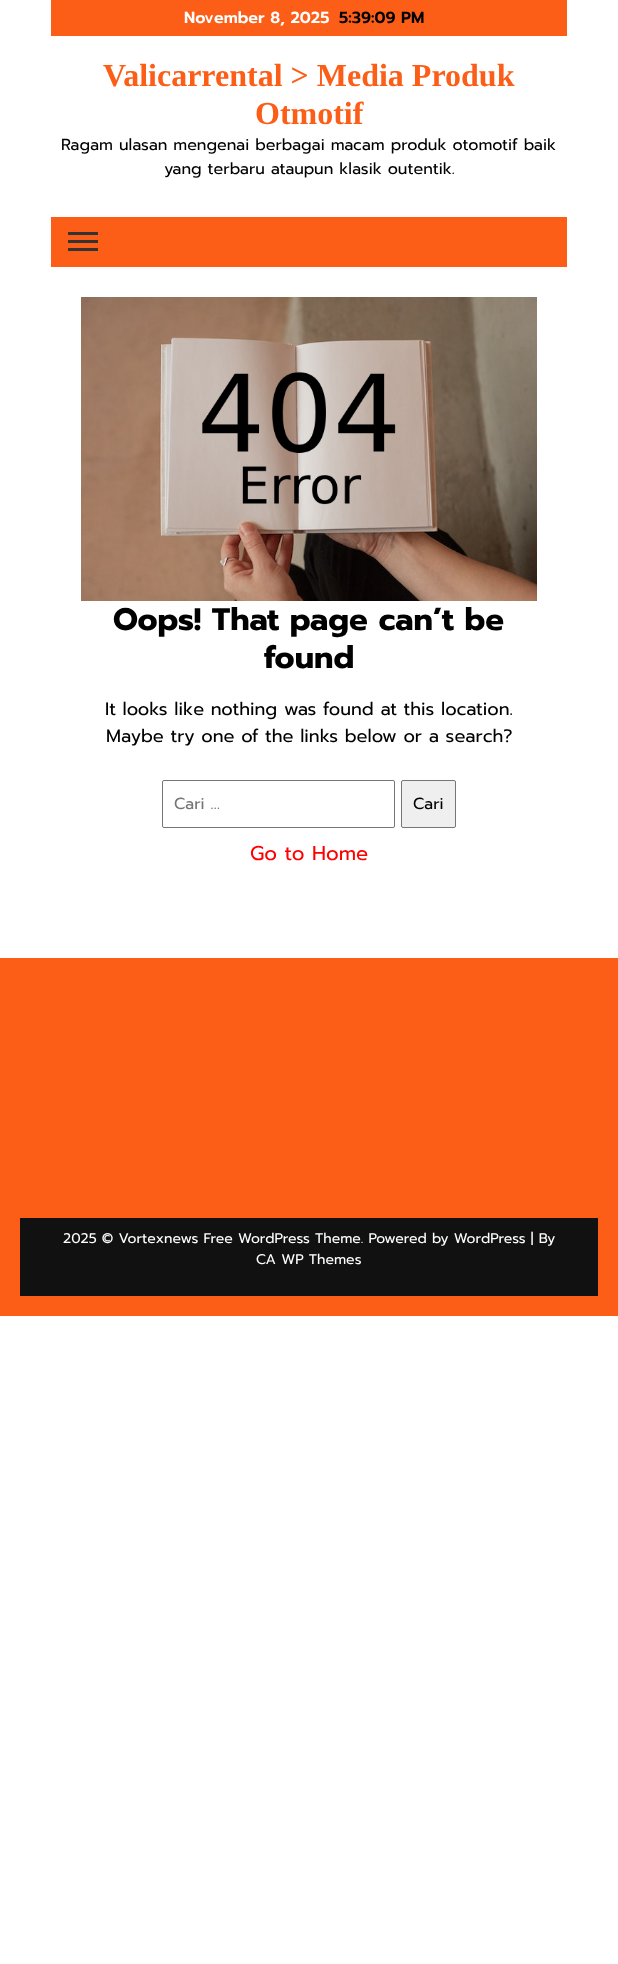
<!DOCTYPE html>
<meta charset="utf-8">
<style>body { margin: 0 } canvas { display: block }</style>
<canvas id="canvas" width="618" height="1964"></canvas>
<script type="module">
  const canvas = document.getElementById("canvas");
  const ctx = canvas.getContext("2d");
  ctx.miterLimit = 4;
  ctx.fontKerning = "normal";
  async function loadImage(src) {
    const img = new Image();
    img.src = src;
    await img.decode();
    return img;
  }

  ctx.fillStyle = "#ffffff";
  ctx.fillRect(0, 0, 618, 1964);
  ctx.fillStyle = "#fc5e18";
  ctx.fillRect(51, 0, 516, 36);
  ctx.font = "600 16px Prompt";
  ctx.fillStyle = "#ffffff";
  ctx.fillText("November 8, 2025", 184, 23);
  ctx.fillStyle = "#000000";
  ctx.fillText("5:39:09 PM", 339, 23);
  ctx.font = "bold 32px Liberation Serif";
  ctx.fillStyle = "#fc5e18";
  ctx.fillText("Valicarrental > Media Produk", 103, 86);
  ctx.fillText("Otmotif", 255, 124);
  ctx.font = "16px Prompt";
  ctx.fillStyle = "#000000";
  ctx.fillText("Ragam ulasan mengenai berbagai macam produk otomotif baik", 61, 150);
  ctx.fillText("yang terbaru ataupun klasik outentik.", 164, 174);
  ctx.fillStyle = "#fc5e18";
  ctx.fillRect(51, 217, 516, 50);
  ctx.fillStyle = "#333333";
  ctx.fillRect(68, 232, 30, 3);
  ctx.fillRect(68, 240, 30, 3);
  ctx.fillRect(68, 248, 30, 3);
  ctx.drawImage(await loadImage("img1.png"), 81, 297, 456, 304);
  ctx.font = "bold 31.25px Prompt";
  ctx.fillStyle = "#000000";
  ctx.fillText("Oops! That page can’t be", 113, 630);
  ctx.fillText("found", 264, 668);
  ctx.font = "18px Prompt";
  ctx.fillText("It looks like nothing was found at this location.", 105, 715);
  ctx.fillText("Maybe try one of the links below or a search?", 106, 742);
  ctx.beginPath();
  ctx.roundRect(162.5, 780.5, 232, 47, 1.5);
  ctx.strokeStyle = "#767676";
  ctx.stroke();
  ctx.font = "16px Prompt";
  ctx.fillStyle = "#757575";
  ctx.fillText("Cari …", 174, 809);
  ctx.fillStyle = "#efefef";
  ctx.beginPath();
  ctx.roundRect(401.5, 780.5, 54, 47, 1.5);
  ctx.fill();
  ctx.stroke();
  ctx.fillStyle = "#000000";
  ctx.fillText("Cari", 413, 809);
  ctx.font = "20px Prompt";
  ctx.fillStyle = "#ff0000";
  ctx.fillText("Go to Home", 250, 860);
  ctx.fillStyle = "#fc5e18";
  ctx.fillRect(0, 958, 618, 358);
  ctx.fillStyle = "#111111";
  ctx.fillRect(20, 1218, 578, 78);
  ctx.font = "14px Prompt";
  ctx.fillStyle = "#ffffff";
  ctx.fillText("2025 © Vortexnews Free WordPress Theme. Powered by WordPress | By", 63, 1243);
  ctx.fillText("CA WP Themes", 256, 1264);
</script>
